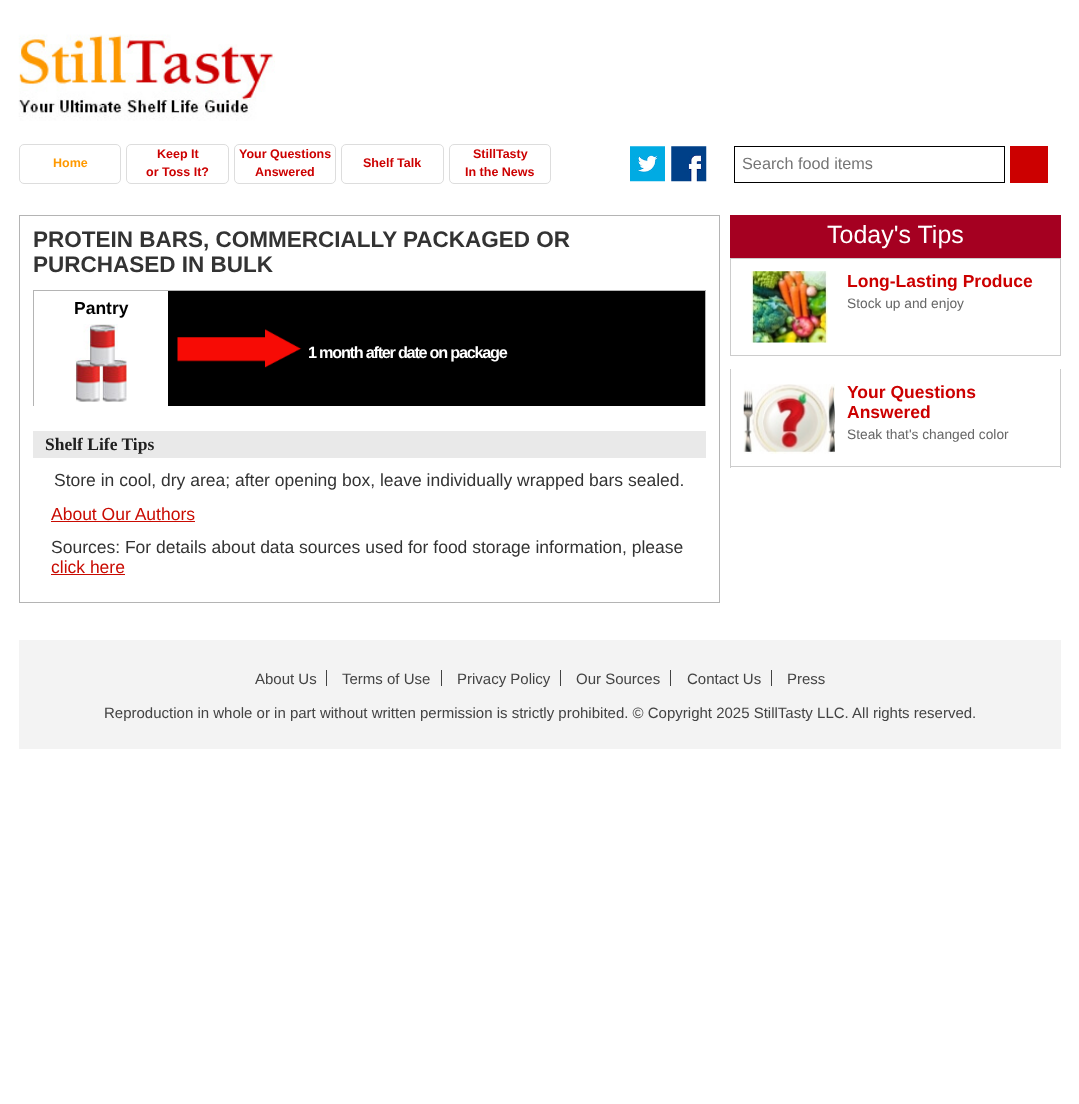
<!DOCTYPE html>
<meta charset="utf-8">
<style>body { margin: 0 } canvas { display: block }</style>
<canvas id="canvas" width="1079" height="1104"></canvas>
<script type="module">
  const canvas = document.getElementById("canvas");
  const ctx = canvas.getContext("2d");
  ctx.miterLimit = 4;
  ctx.fontKerning = "normal";
  async function loadImage(src) {
    const img = new Image();
    img.src = src;
    await img.decode();
    return img;
  }

  ctx.fillStyle = "#ffffff";
  ctx.fillRect(0, 0, 1079, 1104);
  ctx.drawImage(await loadImage("img1.png"), 18, 34, 257, 87);
  ctx.beginPath();
  ctx.roundRect(19.5, 144.5, 101, 39, 4.5);
  ctx.strokeStyle = "#dddddd";
  ctx.stroke();
  ctx.font = "bold 12.5px Liberation Sans";
  ctx.fillStyle = "#ff9900";
  ctx.fillText("Home", 53, 167);
  ctx.beginPath();
  ctx.roundRect(126.5, 144.5, 102, 39, 4.5);
  ctx.stroke();
  ctx.fillStyle = "#cc0000";
  ctx.fillText("Keep It", 157, 158);
  ctx.fillText("or Toss It?", 146, 176);
  ctx.beginPath();
  ctx.roundRect(234.5, 144.5, 101, 39, 4.5);
  ctx.stroke();
  ctx.fillText("Your Questions", 239, 158);
  ctx.fillText("Answered", 255, 176);
  ctx.beginPath();
  ctx.roundRect(341.5, 144.5, 102, 39, 4.5);
  ctx.stroke();
  ctx.fillText("Shelf Talk", 363, 167);
  ctx.beginPath();
  ctx.roundRect(449.5, 144.5, 101, 39, 4.5);
  ctx.stroke();
  ctx.fillText("StillTasty", 473, 158);
  ctx.fillText("In the News", 465, 176);
  ctx.drawImage(await loadImage("img2.png"), 630, 146, 35, 36);
  ctx.drawImage(await loadImage("img3.png"), 671, 146, 36, 36);
  ctx.strokeStyle = "#000000";
  ctx.strokeRect(734.5, 146.5, 270, 36);
  ctx.font = "16.25px Liberation Sans";
  ctx.fillStyle = "#757575";
  ctx.fillText("Search food items", 742, 169);
  ctx.fillStyle = "#cc0000";
  ctx.fillRect(1010, 146, 38, 37);
  ctx.strokeStyle = "#b4b4b4";
  ctx.strokeRect(19.5, 215.5, 700, 387);
  ctx.font = "bold 22.5px Liberation Sans";
  ctx.fillStyle = "#333333";
  ctx.fillText("PROTEIN BARS, COMMERCIALLY PACKAGED OR", 33, 247);
  ctx.fillText("PURCHASED IN BULK", 33, 272);
  ctx.fillStyle = "#b4b4b4";
  ctx.fillRect(33, 290, 673, 1);
  ctx.fillRect(705, 290, 1, 116);
  ctx.fillRect(33, 290, 1, 116);
  ctx.font = "bold 17.5px Liberation Sans";
  ctx.fillStyle = "#000000";
  ctx.fillText("Pantry", 74, 314);
  ctx.drawImage(await loadImage("img4.png"), 75, 324, 52, 78);
  ctx.fillRect(168, 291, 537, 115);
  ctx.drawImage(await loadImage("img5.png"), 177, 337, 88, 25);
  ctx.drawImage(await loadImage("img6.png"), 265, 329, 37, 39);
  ctx.letterSpacing = "-1.25px";
  ctx.font = "bold 16.25px Liberation Sans";
  ctx.fillStyle = "#ffffff";
  ctx.fillText("1 month after date on package", 308, 358);
  ctx.fillStyle = "#e9e9e9";
  ctx.fillRect(33, 431, 673, 27);
  ctx.letterSpacing = "0px";
  ctx.font = "bold 17.5px Liberation Serif";
  ctx.fillStyle = "#202020";
  ctx.fillText("Shelf Life Tips", 45, 450);
  ctx.font = "17.5px Liberation Sans";
  ctx.fillStyle = "#333333";
  ctx.fillText("Store in cool, dry area; after opening box, leave individually wrapped bars sealed.", 54, 486);
  ctx.fillStyle = "#c90b02";
  ctx.fillText("About Our Authors", 51, 520);
  ctx.fillRect(51, 521, 144, 1);
  ctx.fillStyle = "#333333";
  ctx.fillText("Sources: For details about data sources used for food storage information, please", 51, 553);
  ctx.fillStyle = "#c90b02";
  ctx.fillText("click here", 51, 573);
  ctx.fillRect(51, 574, 74, 1);
  ctx.fillStyle = "#a50021";
  ctx.fillRect(730, 215, 331, 43);
  ctx.font = "25px Liberation Sans";
  ctx.fillStyle = "#ffffff";
  ctx.fillText("Today's Tips", 827, 243);
  ctx.strokeStyle = "#cccccc";
  ctx.strokeRect(730.5, 258.5, 330, 97);
  ctx.drawImage(await loadImage("img7.png"), 751, 271, 77, 72);
  ctx.font = "bold 17.5px Liberation Sans";
  ctx.fillStyle = "#cc0000";
  ctx.fillText("Long-Lasting Produce", 847, 287);
  ctx.font = "13.75px Liberation Sans";
  ctx.fillStyle = "#666666";
  ctx.fillText("Stock up and enjoy", 847, 308);
  ctx.fillStyle = "#cccccc";
  ctx.fillRect(1060, 369, 1, 99);
  ctx.fillRect(730, 466, 331, 1);
  ctx.fillRect(730, 369, 1, 99);
  ctx.drawImage(await loadImage("img8.png"), 743, 384, 92, 70);
  ctx.font = "bold 17.5px Liberation Sans";
  ctx.fillStyle = "#cc0000";
  ctx.fillText("Your Questions", 847, 398);
  ctx.fillText("Answered", 847, 418);
  ctx.font = "13.75px Liberation Sans";
  ctx.fillStyle = "#666666";
  ctx.fillText("Steak that's changed color", 847, 439);
  ctx.fillStyle = "#f3f3f3";
  ctx.fillRect(19, 640, 1042, 109);
  ctx.fillStyle = "#434343";
  ctx.fillRect(326, 670, 1, 16);
  ctx.font = "15px Liberation Sans";
  ctx.fillText("About Us", 255, 684);
  ctx.fillRect(441, 670, 1, 16);
  ctx.fillText("Terms of Use", 342, 684);
  ctx.fillRect(560, 670, 1, 16);
  ctx.fillText("Privacy Policy", 457, 684);
  ctx.fillRect(670, 670, 1, 16);
  ctx.fillText("Our Sources", 576, 684);
  ctx.fillRect(771, 670, 1, 16);
  ctx.fillText("Contact Us", 687, 684);
  ctx.fillText("Press", 787, 684);
  ctx.fillText("Reproduction in whole or in part without written permission is strictly prohibited. © Copyright 2025 StillTasty LLC. All rights reserved.", 104, 718);
</script>
